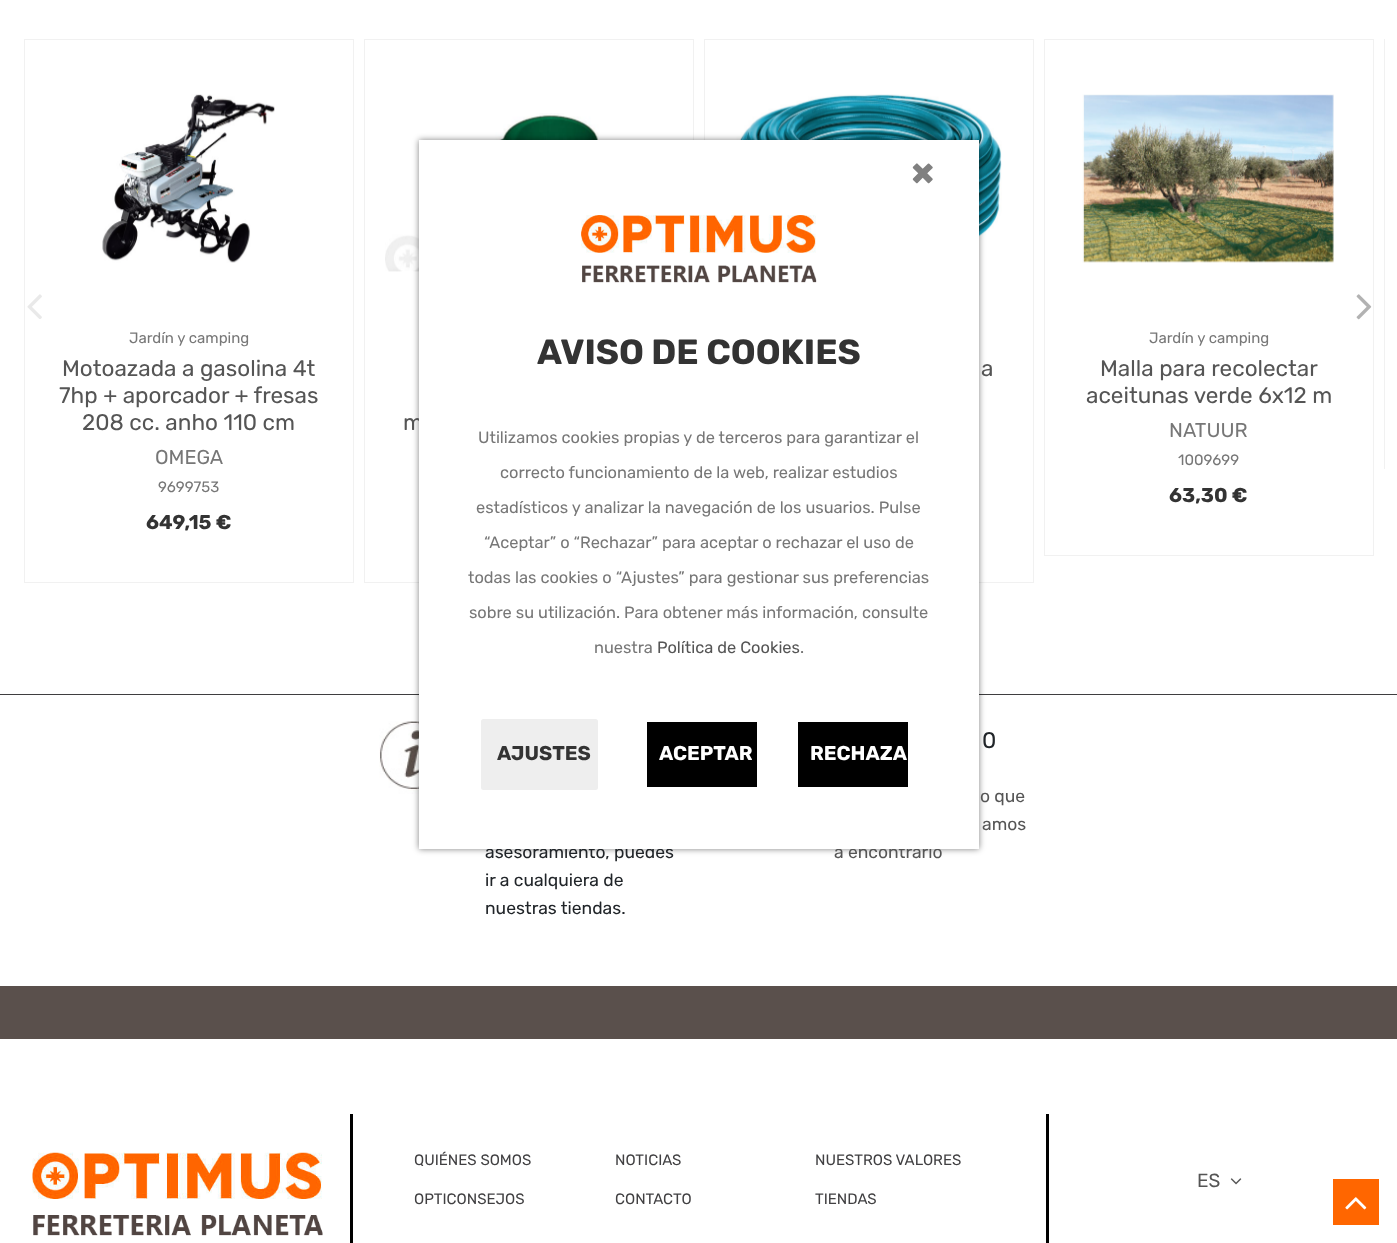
<!DOCTYPE html>
<meta charset="utf-8">
<style>body { margin: 0 } canvas { display: block }</style>
<canvas id="canvas" width="1397" height="1243"></canvas>
<script type="module">
  const canvas = document.getElementById("canvas");
  const ctx = canvas.getContext("2d");
  ctx.miterLimit = 4;
  ctx.fontKerning = "normal";
  async function loadImage(src) {
    const img = new Image();
    img.src = src;
    await img.decode();
    return img;
  }

  ctx.fillStyle = "#ffffff";
  ctx.fillRect(0, 0, 1397, 1243);
  ctx.strokeStyle = "#f1f1f1";
  ctx.strokeRect(704.5, 39.5, 329, 543);
  ctx.drawImage(await loadImage("img5.png"), 736, 94, 266, 169);
  ctx.strokeRect(364.5, 39.5, 329, 543);
  ctx.drawImage(await loadImage("img7.png"), 385, 113, 288, 159);
  ctx.fillStyle = "#3f3e40";
  ctx.fillRect(0, 694, 1397, 1);
  ctx.drawImage(await loadImage("img8.png"), 379, 721, 40, 73);
  ctx.fillStyle = "rgba(0, 0, 0, 0.5)";
  ctx.filter = "blur(3px)";
  ctx.beginPath();
  ctx.rect(419, 140, 560, 709);
  ctx.fill();
  ctx.filter = "none";
  ctx.font = "22.5px Rubik";
  ctx.fillStyle = "#555555";
  ctx.fillText("m", 403, 430);
  ctx.font = "17.5px Rubik";
  ctx.fillText("a encontrarlo", 834, 858);
  ctx.fillStyle = "#212529";
  ctx.fillText("asesoramiento, puedes", 485, 858);
  ctx.fillStyle = "#ffffff";
  ctx.fillRect(419, 140, 560, 709);
  ctx.font = "bold 39px Rubik";
  ctx.fillStyle = "#808080";
  ctx.fillText("×", 911, 185);
  ctx.drawImage(await loadImage("img1.png"), 581, 215, 236, 68);
  ctx.font = "bold 35px Rubik";
  ctx.fillStyle = "#333333";
  ctx.fillText("AVISO DE COOKIES", 537, 364);
  ctx.font = "16.4px Rubik";
  ctx.fillStyle = "#777777";
  ctx.fillText("Utilizamos cookies propias y de terceros para garantizar el", 478, 443);
  ctx.fillText("correcto funcionamiento de la web, realizar estudios", 500, 478);
  ctx.fillText("estadísticos y analizar la navegación de los usuarios. Pulse", 476, 513);
  ctx.fillText("“Aceptar” o “Rechazar” para aceptar o rechazar el uso de", 484, 548);
  ctx.fillText("todas las cookies o “Ajustes” para gestionar sus preferencias", 468, 583);
  ctx.fillText("sobre su utilización. Para obtener más información, consulte", 469, 618);
  ctx.fillText("nuestra", 594, 653);
  ctx.fillStyle = "#555555";
  ctx.fillText("Política de Cookies", 657, 653);
  ctx.fillStyle = "#777777";
  ctx.fillText(".", 800, 653);
  ctx.fillStyle = "#eeeeee";
  ctx.beginPath();
  ctx.roundRect(482.5, 720.5, 114, 68, 1);
  ctx.fill();
  ctx.strokeStyle = "#eeeeee";
  ctx.lineWidth = 3;
  ctx.stroke();
  ctx.font = "bold 20px Rubik";
  ctx.fillStyle = "#333333";
  ctx.fillText("AJUSTES", 497, 760);
  ctx.fillStyle = "#000000";
  ctx.beginPath();
  ctx.roundRect(645.5, 720.5, 113, 68, 1);
  ctx.fill();
  ctx.strokeStyle = "#ffffff";
  ctx.stroke();
  ctx.fillStyle = "#ffffff";
  ctx.fillText("ACEPTAR", 659, 760);
  ctx.fillStyle = "#000000";
  ctx.beginPath();
  ctx.roundRect(796.5, 720.5, 113, 68, 1);
  ctx.fill();
  ctx.stroke();
  ctx.fillStyle = "#ffffff";
  ctx.fillText("RECHAZA", 810, 760);
  ctx.strokeStyle = "#f1f1f1";
  ctx.lineWidth = 1;
  ctx.strokeRect(24.5, 39.5, 329, 543);
  ctx.drawImage(await loadImage("img2.png"), 27, 294, 15, 25);
  ctx.strokeRect(1044.5, 39.5, 329, 516);
  ctx.drawImage(await loadImage("img3.png"), 1356, 294, 16, 26);
  ctx.drawImage(await loadImage("img4.png"), 102, 94, 173, 169);
  ctx.font = "15px Rubik";
  ctx.fillStyle = "#777777";
  ctx.fillText("Jardín y camping", 129, 343);
  ctx.font = "22.5px Rubik";
  ctx.fillStyle = "#555555";
  ctx.fillText("Motoazada a gasolina 4t", 62, 376);
  ctx.fillText("7hp + aporcador + fresas", 59, 403);
  ctx.fillText("208 cc. anho 110 cm", 82, 430);
  ctx.font = "20px Rubik";
  ctx.fillStyle = "#777777";
  ctx.fillText("OMEGA", 155, 464);
  ctx.font = "15px Rubik";
  ctx.fillText("9699753", 158, 492);
  ctx.font = "bold 20px Rubik";
  ctx.fillStyle = "#333333";
  ctx.fillText("649,15 €", 146, 529);
  ctx.font = "22.5px Rubik";
  ctx.fillStyle = "#555555";
  ctx.fillText("a", 981, 376);
  ctx.drawImage(await loadImage("img6.png"), 1082, 94, 252, 169);
  ctx.font = "15px Rubik";
  ctx.fillStyle = "#777777";
  ctx.fillText("Jardín y camping", 1149, 343);
  ctx.font = "22.5px Rubik";
  ctx.fillStyle = "#555555";
  ctx.fillText("Malla para recolectar", 1100, 376);
  ctx.fillText("aceitunas verde 6x12 m", 1086, 403);
  ctx.font = "20px Rubik";
  ctx.fillStyle = "#777777";
  ctx.fillText("NATUUR", 1169, 437);
  ctx.font = "15px Rubik";
  ctx.fillText("1009699", 1178, 465);
  ctx.font = "bold 20px Rubik";
  ctx.fillStyle = "#333333";
  ctx.fillText("63,30 €", 1169, 502);
  ctx.save();
  ctx.beginPath();
  ctx.rect(13, 8, 1372, 586);
  ctx.clip();
  ctx.strokeRect(1384.5, 39.5, 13, 429);
  ctx.restore();
  ctx.font = "22.5px Rubik";
  ctx.fillStyle = "#212529";
  ctx.fillText("0", 982, 748);
  ctx.font = "17.5px Rubik";
  ctx.fillStyle = "#555555";
  ctx.fillText("o que", 980, 802);
  ctx.fillText("amos", 982, 830);
  ctx.fillStyle = "#212529";
  ctx.fillText("ir a cualquiera de", 485, 886);
  ctx.fillText("nuestras tiendas.", 485, 914);
  ctx.fillStyle = "#5a504c";
  ctx.fillRect(0, 986, 1397, 53);
  ctx.drawImage(await loadImage("img9.png"), 32, 1152, 291, 84);
  ctx.fillStyle = "#000000";
  ctx.fillRect(1046, 1114, 3, 129);
  ctx.fillRect(350, 1114, 3, 129);
  ctx.font = "15px Rubik";
  ctx.fillStyle = "#414042";
  ctx.fillText("QUIÉNES SOMOS", 414, 1165);
  ctx.fillText("NOTICIAS", 615, 1165);
  ctx.fillText("NUESTROS VALORES", 815, 1165);
  ctx.fillText("OPTICONSEJOS", 414, 1204);
  ctx.fillText("CONTACTO", 615, 1204);
  ctx.fillText("TIENDAS", 815, 1204);
  ctx.font = "19px Rubik";
  ctx.fillStyle = "#555555";
  ctx.fillText("ES", 1197, 1187);
  ctx.drawImage(await loadImage("img10.png"), 1230, 1178, 12, 7);
  ctx.fillStyle = "#ff6600";
  ctx.fillRect(1333, 1179, 46, 46);
  ctx.drawImage(await loadImage("img11.png"), 1345, 1197, 22, 13);
</script>
